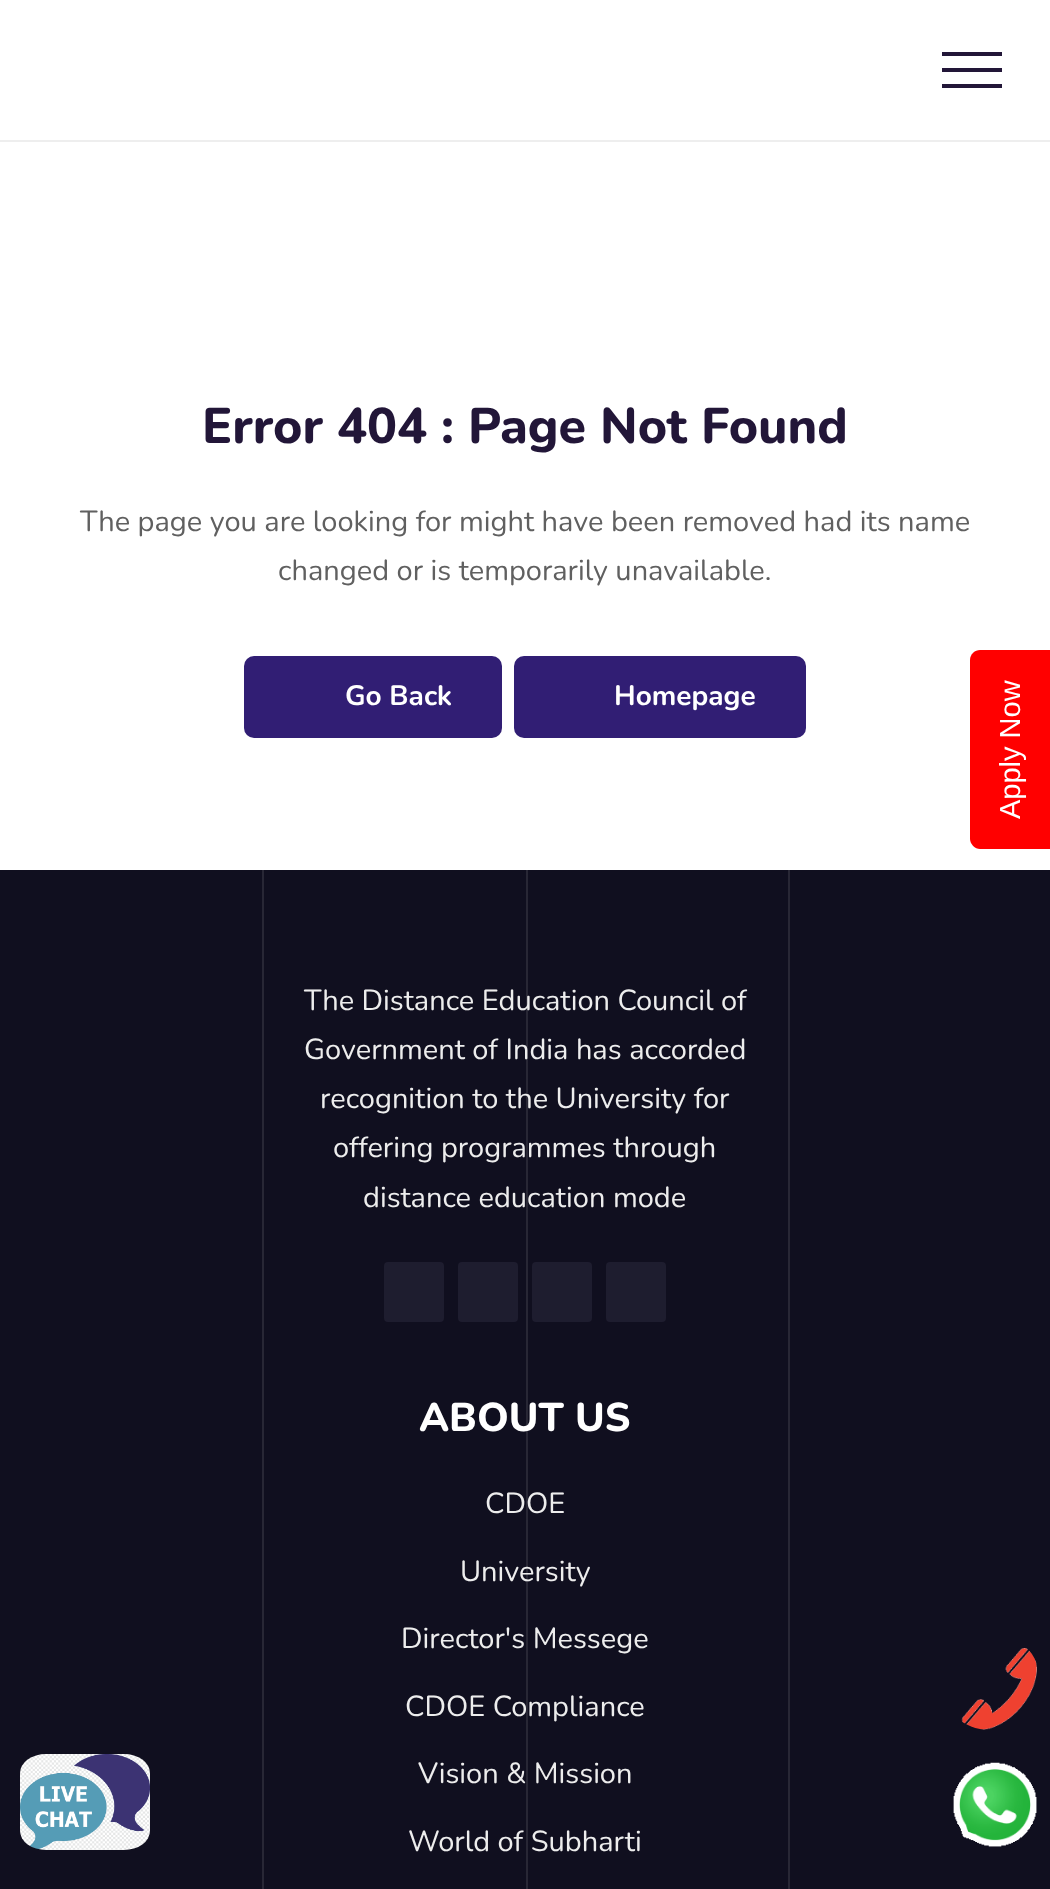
<!DOCTYPE html>
<meta charset="utf-8">
<style>body { margin: 0 } canvas { display: block }</style>
<canvas id="canvas" width="1050" height="1889"></canvas>
<script type="module">
  const canvas = document.getElementById("canvas");
  const ctx = canvas.getContext("2d");
  ctx.miterLimit = 4;
  ctx.fontKerning = "normal";
  async function loadImage(src) {
    const img = new Image();
    img.src = src;
    await img.decode();
    return img;
  }

  ctx.fillStyle = "#ffffff";
  ctx.fillRect(0, 0, 1050, 1889);
  ctx.fillStyle = "#221638";
  ctx.fillRect(942, 52, 60, 4);
  ctx.fillRect(942, 68, 60, 4);
  ctx.fillRect(942, 84, 60, 4);
  ctx.fillStyle = "#eeeeee";
  ctx.fillRect(0, 140, 1050, 2);
  ctx.font = "800 50px Nunito";
  ctx.fillStyle = "#221638";
  ctx.fillText("Error 404 : Page Not Found", 202, 443);
  ctx.font = "29px Nunito";
  ctx.fillStyle = "#606060";
  ctx.fillText("The page you are looking for might have been removed had its name", 80, 531);
  ctx.fillText("changed or is temporarily unavailable.", 278, 580);
  ctx.fillStyle = "#311e74";
  ctx.beginPath();
  ctx.roundRect(244, 656, 258, 82, 10);
  ctx.fill();
  ctx.font = "bold 28px Nunito";
  ctx.fillStyle = "#ffffff";
  ctx.fillText("Go Back", 345, 705);
  ctx.fillStyle = "#311e74";
  ctx.beginPath();
  ctx.roundRect(514, 656, 292, 82, 10);
  ctx.fill();
  ctx.fillStyle = "#ffffff";
  ctx.fillText("Homepage", 614, 705);
  ctx.fillStyle = "#100f1f";
  ctx.fillRect(0, 870, 1050, 1019);
  ctx.fillStyle = "#282735";
  ctx.fillRect(262, 870, 2, 1019);
  ctx.fillRect(526, 870, 2, 1019);
  ctx.fillRect(788, 870, 2, 1019);
  ctx.font = "29px Nunito";
  ctx.fillStyle = "#ededed";
  ctx.fillText("The Distance Education Council of", 304, 1010);
  ctx.fillText("Government of India has accorded", 304, 1059);
  ctx.fillText("recognition to the University for", 320, 1108);
  ctx.fillText("offering programmes through", 333, 1157);
  ctx.fillText("distance education mode", 363, 1207);
  ctx.fillStyle = "#1e1d2f";
  ctx.beginPath();
  ctx.roundRect(384, 1262, 60, 60, 4);
  ctx.fill();
  ctx.beginPath();
  ctx.roundRect(458, 1262, 60, 60, 4);
  ctx.fill();
  ctx.beginPath();
  ctx.roundRect(532, 1262, 60, 60, 4);
  ctx.fill();
  ctx.beginPath();
  ctx.roundRect(606, 1262, 60, 60, 4);
  ctx.fill();
  ctx.font = "800 40px Nunito";
  ctx.fillStyle = "#ffffff";
  ctx.fillText("ABOUT US", 419, 1431);
  ctx.font = "29px Nunito";
  ctx.fillStyle = "#ededed";
  ctx.fillText("CDOE", 485, 1513);
  ctx.fillText("University", 460, 1581);
  ctx.fillText("Director's Messege", 401, 1648);
  ctx.fillText("CDOE Compliance", 405, 1716);
  ctx.fillText("Vision & Mission", 418, 1783);
  ctx.fillText("World of Subharti", 408, 1851);
  ctx.fillStyle = "#ff0000";
  ctx.beginPath();
  ctx.moveTo(970, 839);
  ctx.lineTo(970, 660);
  ctx.bezierCurveTo(970, 654, 975, 650, 980, 650);
  ctx.lineTo(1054, 650);
  ctx.lineTo(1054, 849);
  ctx.lineTo(980, 849);
  ctx.bezierCurveTo(975, 849, 970, 844, 970, 839);
  ctx.closePath();
  ctx.fill();
  ctx.font = "29px Liberation Sans";
  ctx.fillStyle = "#ffffff";
  ctx.save();
  ctx.translate(1020, 819);
  ctx.rotate(-90 * Math.PI / 180);
  ctx.fillText("Apply Now", 0, 0);
  ctx.restore();
  ctx.drawImage(await loadImage("img1.png"), 961, 1648, 76, 82);
  ctx.drawImage(await loadImage("img2.png"), 20, 1754, 130, 96);
  ctx.drawImage(await loadImage("img3.png"), 953, 1762, 84, 85);
</script>
